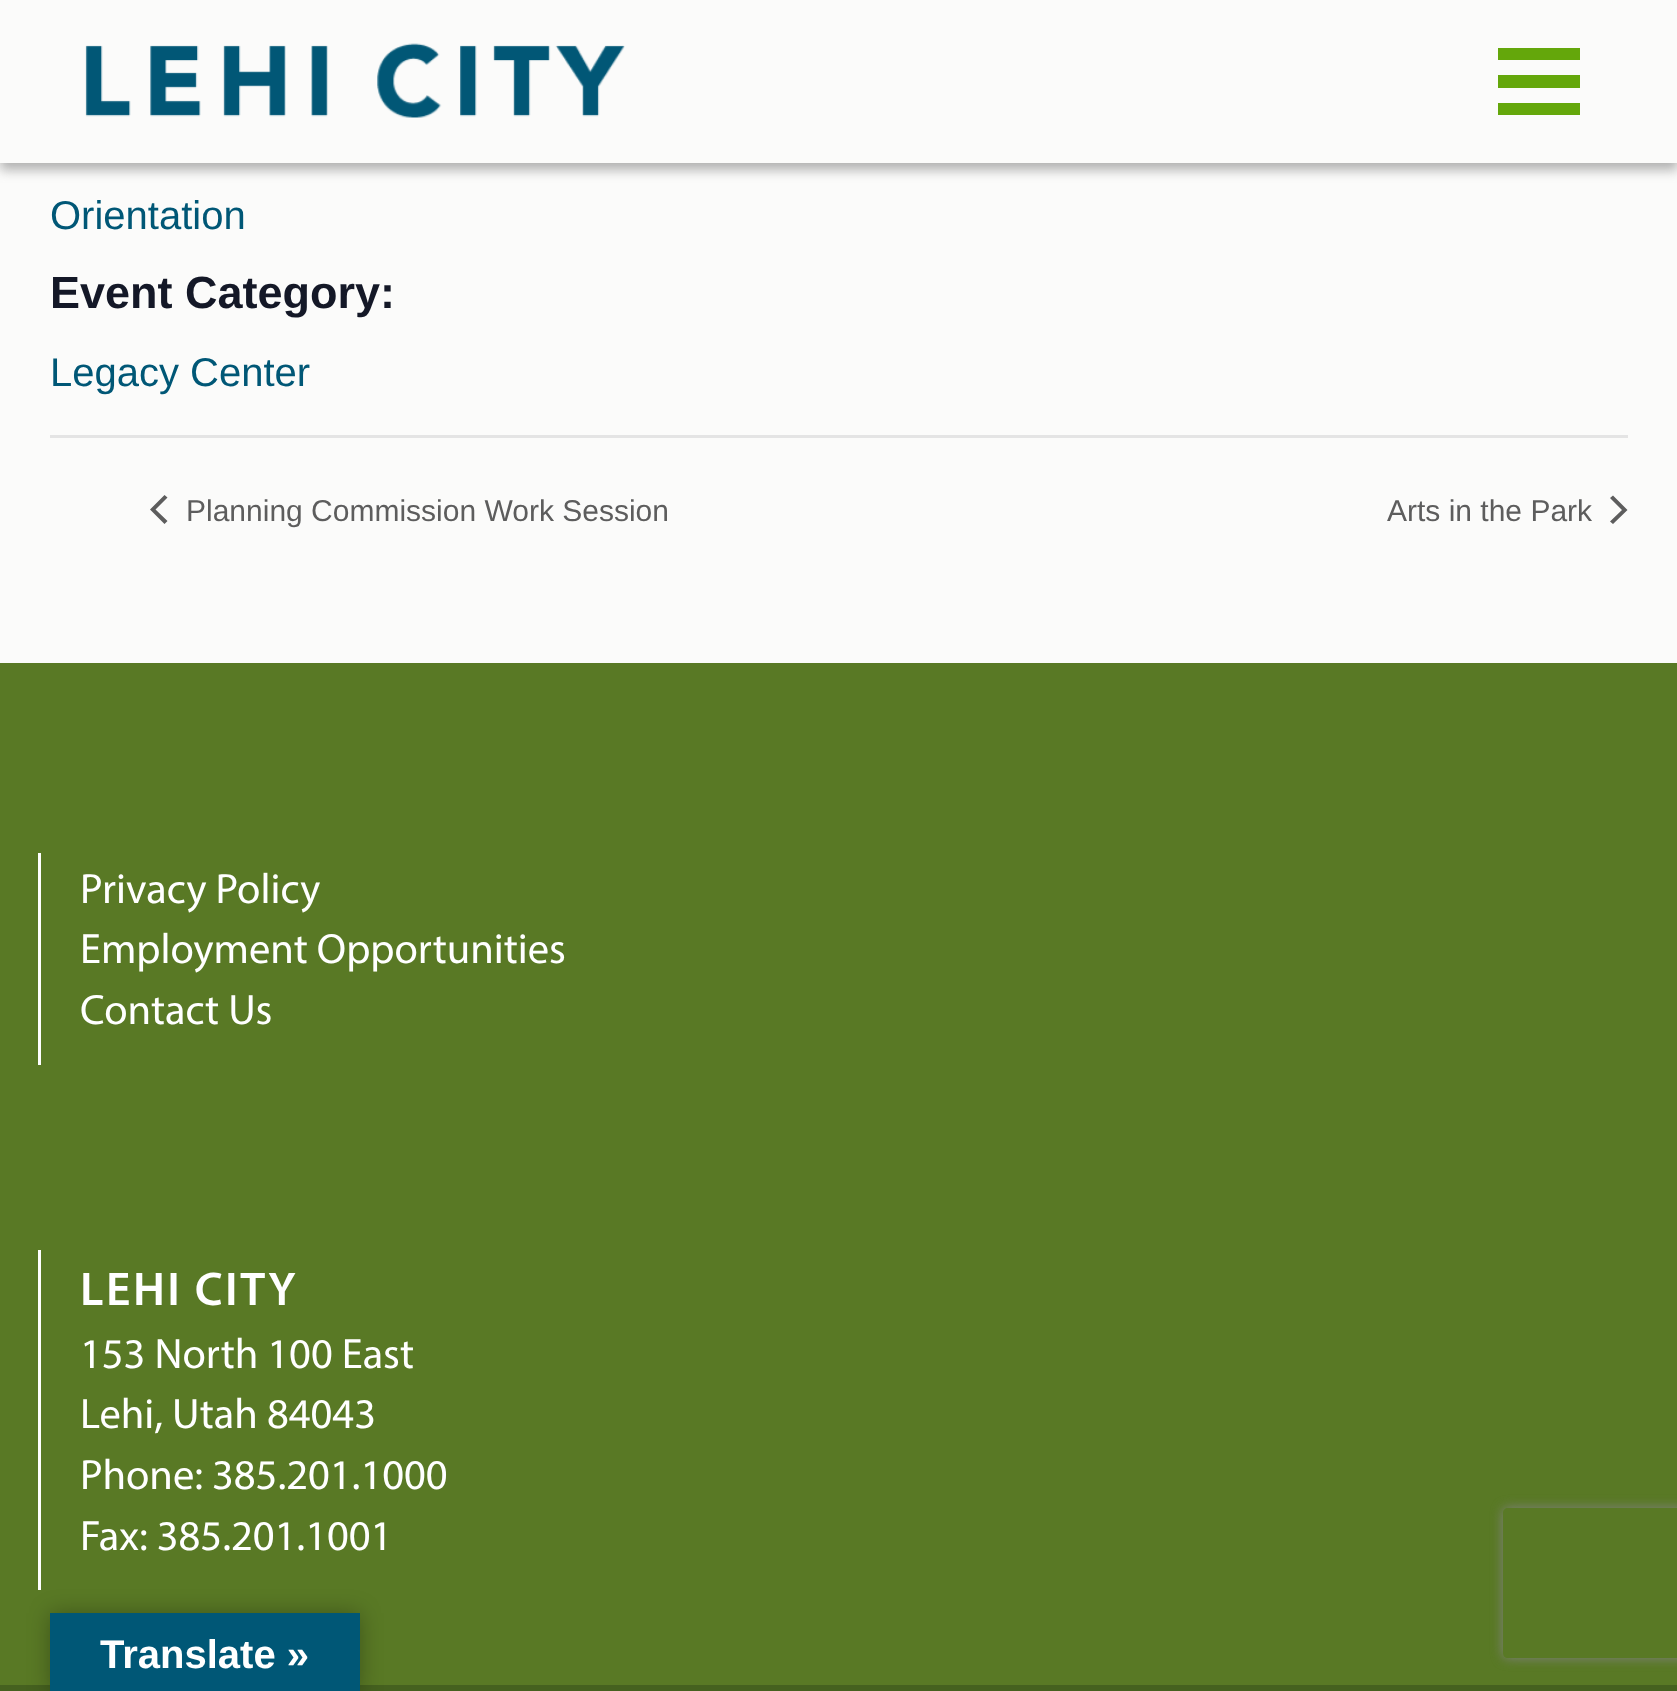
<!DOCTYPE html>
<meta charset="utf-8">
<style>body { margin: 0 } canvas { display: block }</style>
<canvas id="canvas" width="1677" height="1691"></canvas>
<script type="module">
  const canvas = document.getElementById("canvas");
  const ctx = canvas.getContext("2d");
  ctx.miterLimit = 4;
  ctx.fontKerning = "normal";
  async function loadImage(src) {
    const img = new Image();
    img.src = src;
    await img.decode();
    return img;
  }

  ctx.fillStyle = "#fbfbfa";
  ctx.fillRect(0, 0, 1677, 1691);
  ctx.fillStyle = "rgba(100, 100, 100, 0.49)";
  ctx.filter = "blur(6px)";
  ctx.beginPath();
  ctx.rect(0, 8, 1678, 162);
  ctx.fill();
  ctx.filter = "none";
  ctx.fillStyle = "#fbfbfa";
  ctx.fillRect(0, 0, 1677, 163);
  ctx.drawImage(await loadImage("img1.png"), 85, 43, 540, 75);
  ctx.fillStyle = "#64a70b";
  ctx.fillRect(1498, 48, 82, 12);
  ctx.fillRect(1498, 75, 82, 13);
  ctx.fillRect(1498, 103, 82, 12);
  ctx.font = "40px Liberation Sans";
  ctx.fillStyle = "#005776";
  ctx.fillText("Orientation", 50, 229);
  ctx.font = "bold 45px Liberation Sans";
  ctx.fillStyle = "#141827";
  ctx.fillText("Event Category:", 50, 308);
  ctx.font = "40px Liberation Sans";
  ctx.fillStyle = "#005776";
  ctx.fillText("Legacy Center", 50, 386);
  ctx.fillStyle = "#e4e4e4";
  ctx.fillRect(50, 435, 1578, 3);
  ctx.fillStyle = "#5d5d5d";
  ctx.beginPath();
  ctx.moveTo(167.5, 521);
  ctx.lineTo(164.5, 524);
  ctx.lineTo(150, 509.5);
  ctx.lineTo(164.5, 495);
  ctx.lineTo(167.5, 497.5);
  ctx.lineTo(155.5, 509.5);
  ctx.closePath();
  ctx.fill();
  ctx.font = "30px Liberation Sans";
  ctx.fillText("Planning Commission Work Session", 186, 521);
  ctx.fillText("Arts in the Park", 1387, 521);
  ctx.beginPath();
  ctx.moveTo(1610, 498);
  ctx.lineTo(1613, 495.5);
  ctx.lineTo(1627.5, 510);
  ctx.lineTo(1613, 524);
  ctx.lineTo(1610, 521.5);
  ctx.lineTo(1622, 510);
  ctx.closePath();
  ctx.fill();
  ctx.fillStyle = "#597925";
  ctx.fillRect(0, 663, 1677, 1022);
  ctx.fillStyle = "#ffffff";
  ctx.fillRect(38, 853, 3, 212);
  ctx.font = "42.5px Myriad";
  ctx.fillText("Privacy Policy", 80, 903);
  ctx.fillText("Employment Opportunities", 80, 963);
  ctx.fillText("Contact Us", 80, 1024);
  ctx.fillRect(38, 1250, 3, 340);
  ctx.letterSpacing = "2.5px";
  ctx.font = "600 47.5px Myriad";
  ctx.fillText("LEHI CITY", 80, 1305);
  ctx.letterSpacing = "0px";
  ctx.font = "42.5px Myriad";
  ctx.fillText("153 North 100 East", 80, 1368);
  ctx.fillText("Lehi, Utah 84043", 80, 1428);
  ctx.fillText("Phone: 385.201.1000", 80, 1489);
  ctx.fillText("Fax: 385.201.1001", 80, 1550);
  ctx.fillStyle = "#45611f";
  ctx.fillRect(0, 1685, 1677, 6);
  ctx.fillStyle = "rgba(0, 0, 0, 0.3)";
  ctx.filter = "blur(11px)";
  ctx.beginPath();
  ctx.rect(50, 1613, 310, 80);
  ctx.fill();
  ctx.filter = "none";
  ctx.fillStyle = "#005776";
  ctx.fillRect(50, 1613, 310, 78);
  ctx.font = "bold 40px Liberation Sans";
  ctx.fillStyle = "#ffffff";
  ctx.fillText("Translate »", 100, 1668);
  ctx.save();
  ctx.beginPath();
  ctx.moveTo(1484, 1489);
  ctx.lineTo(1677, 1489);
  ctx.lineTo(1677, 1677);
  ctx.lineTo(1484, 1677);
  ctx.closePath();
  ctx.moveTo(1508, 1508);
  ctx.lineTo(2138, 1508);
  ctx.bezierCurveTo(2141, 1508, 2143, 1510, 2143, 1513);
  ctx.lineTo(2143, 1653);
  ctx.bezierCurveTo(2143, 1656, 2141, 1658, 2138, 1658);
  ctx.lineTo(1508, 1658);
  ctx.bezierCurveTo(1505, 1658, 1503, 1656, 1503, 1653);
  ctx.lineTo(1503, 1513);
  ctx.bezierCurveTo(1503, 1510, 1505, 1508, 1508, 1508);
  ctx.closePath();
  ctx.clip("evenodd");
  ctx.fillStyle = "#808080";
  ctx.filter = "blur(6px)";
  ctx.beginPath();
  ctx.roundRect(1503, 1508, 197, 150, 5);
  ctx.fill();
  ctx.filter = "none";
  ctx.restore();
</script>
